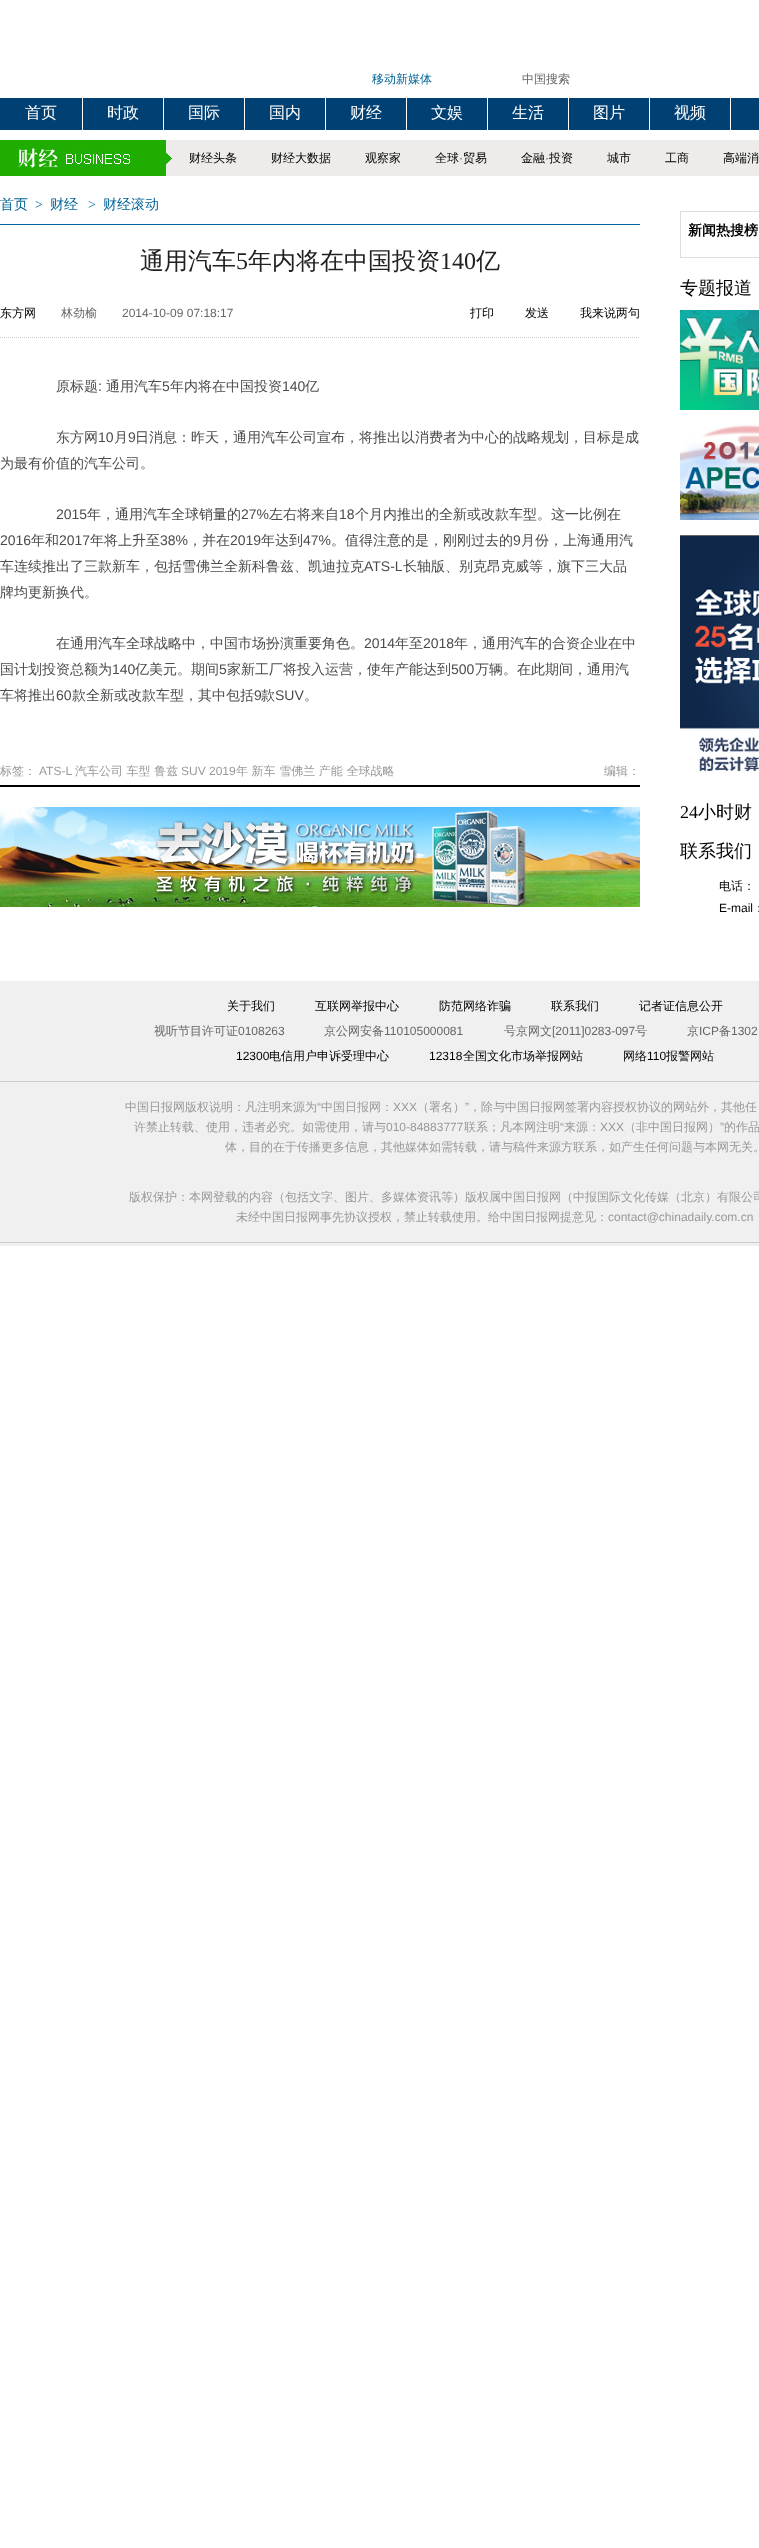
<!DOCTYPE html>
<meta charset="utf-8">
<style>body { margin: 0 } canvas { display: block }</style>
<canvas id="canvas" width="759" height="2548"></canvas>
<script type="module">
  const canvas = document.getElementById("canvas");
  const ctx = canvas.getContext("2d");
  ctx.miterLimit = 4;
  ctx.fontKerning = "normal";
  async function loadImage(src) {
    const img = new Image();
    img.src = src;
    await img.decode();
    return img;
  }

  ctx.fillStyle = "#ffffff";
  ctx.fillRect(0, 0, 759, 2548);
  ctx.font = "500 12px WenQuanYi Zen Hei";
  ctx.fillStyle = "#006498";
  ctx.fillText("移动新媒体", 372, 83);
  ctx.fillStyle = "#666666";
  ctx.fillText("中国搜索", 522, 83);
  ctx.fillStyle = "#014073";
  ctx.fillRect(0, 98, 759, 32);
  ctx.fillStyle = "#ffffff";
  ctx.fillRect(82, 98, 1, 32);
  ctx.font = "500 16px WenQuanYi Zen Hei";
  ctx.fillText("首页", 25, 118);
  ctx.fillRect(163, 98, 1, 32);
  ctx.fillText("时政", 107, 118);
  ctx.fillRect(244, 98, 1, 32);
  ctx.fillText("国际", 188, 118);
  ctx.fillRect(325, 98, 1, 32);
  ctx.fillText("国内", 269, 118);
  ctx.fillRect(406, 98, 1, 32);
  ctx.fillText("财经", 350, 118);
  ctx.fillRect(487, 98, 1, 32);
  ctx.fillText("文娱", 431, 118);
  ctx.fillRect(568, 98, 1, 32);
  ctx.fillText("生活", 512, 118);
  ctx.fillRect(649, 98, 1, 32);
  ctx.fillText("图片", 593, 118);
  ctx.fillRect(730, 98, 1, 32);
  ctx.fillText("视频", 674, 118);
  ctx.fillStyle = "#edecea";
  ctx.fillRect(166, 140, 593, 36);
  ctx.drawImage(await loadImage("img1.png"), 0, 140, 172, 36);
  ctx.font = "500 12px WenQuanYi Zen Hei";
  ctx.fillStyle = "#000000";
  ctx.fillText("财经头条", 189, 162);
  ctx.fillText("财经大数据", 271, 162);
  ctx.fillText("观察家", 365, 162);
  ctx.fillText("全球", 435, 162);
  ctx.font = "12px Liberation Sans";
  ctx.fillStyle = "#666666";
  ctx.fillText("·", 459, 162);
  ctx.font = "500 12px WenQuanYi Zen Hei";
  ctx.fillStyle = "#000000";
  ctx.fillText("贸易", 463, 162);
  ctx.fillText("金融", 521, 162);
  ctx.font = "12px Liberation Sans";
  ctx.fillStyle = "#666666";
  ctx.fillText("·", 545, 162);
  ctx.font = "500 12px WenQuanYi Zen Hei";
  ctx.fillStyle = "#000000";
  ctx.fillText("投资", 549, 162);
  ctx.fillText("城市", 607, 162);
  ctx.fillText("工商", 665, 162);
  ctx.fillText("高端消", 723, 162);
  ctx.fillStyle = "#006599";
  ctx.fillRect(0, 224, 640, 1);
  ctx.font = "500 14px WenQuanYi Zen Hei";
  ctx.fillStyle = "#006498";
  ctx.fillText("首页", 0, 209);
  ctx.font = "14px Liberation Serif";
  ctx.fillText(">", 35, 209);
  ctx.font = "500 14px WenQuanYi Zen Hei";
  ctx.fillText("财经", 50, 209);
  ctx.font = "14px Liberation Serif";
  ctx.fillText(">", 88, 209);
  ctx.font = "500 14px WenQuanYi Zen Hei";
  ctx.fillText("财经滚动", 103, 209);
  ctx.font = "500 24px WenQuanYi Zen Hei";
  ctx.fillStyle = "#212121";
  ctx.fillText("通用汽车", 140, 269);
  ctx.font = "24px Liberation Serif";
  ctx.fillText("5", 236, 269);
  ctx.font = "500 24px WenQuanYi Zen Hei";
  ctx.fillText("年内将在中国投资", 248, 269);
  ctx.font = "24px Liberation Serif";
  ctx.fillText("140", 440, 269);
  ctx.font = "500 24px WenQuanYi Zen Hei";
  ctx.fillText("亿", 476, 269);
  ctx.beginPath();
  ctx.moveTo(0, 337.5);
  ctx.lineTo(640, 337.5);
  ctx.strokeStyle = "#cccccc";
  ctx.setLineDash([1, 1]);
  ctx.stroke();
  ctx.font = "500 12px WenQuanYi Zen Hei";
  ctx.fillStyle = "#000000";
  ctx.fillText("东方网", 0, 317);
  ctx.fillStyle = "#666666";
  ctx.fillText("林劲榆", 61, 317);
  ctx.font = "12px Liberation Sans";
  ctx.fillText("2014-10-09 07:18:17", 122, 317);
  ctx.font = "500 12px WenQuanYi Zen Hei";
  ctx.fillStyle = "#000000";
  ctx.fillText("打印", 470, 317);
  ctx.fillText("发送", 525, 317);
  ctx.fillText("我来说两句", 580, 317);
  ctx.font = "500 14px WenQuanYi Zen Hei";
  ctx.fillStyle = "#4b4b4b";
  ctx.fillText("原标题", 56, 391);
  ctx.font = "14px Liberation Sans";
  ctx.fillText(":", 98, 391);
  ctx.font = "500 14px WenQuanYi Zen Hei";
  ctx.fillText("通用汽车", 106, 391);
  ctx.font = "14px Liberation Sans";
  ctx.fillText("5", 162, 391);
  ctx.font = "500 14px WenQuanYi Zen Hei";
  ctx.fillText("年内将在中国投资", 170, 391);
  ctx.font = "14px Liberation Sans";
  ctx.fillText("140", 282, 391);
  ctx.font = "500 14px WenQuanYi Zen Hei";
  ctx.fillText("亿", 305, 391);
  ctx.fillText("东方网", 56, 442);
  ctx.font = "14px Liberation Sans";
  ctx.fillText("10", 98, 442);
  ctx.font = "500 14px WenQuanYi Zen Hei";
  ctx.fillText("月", 114, 442);
  ctx.font = "14px Liberation Sans";
  ctx.fillText("9", 128, 442);
  ctx.font = "500 14px WenQuanYi Zen Hei";
  ctx.fillText("日消息：昨天，通用汽车公司宣布，将推出以消费者为中心的战略规划，目标是成", 135, 442);
  ctx.fillText("为最有价值的汽车公司。", 0, 468);
  ctx.font = "14px Liberation Sans";
  ctx.fillText("2015", 56, 519);
  ctx.font = "500 14px WenQuanYi Zen Hei";
  ctx.fillText("年，通用汽车全球销量的", 87, 519);
  ctx.font = "14px Liberation Sans";
  ctx.fillText("27%", 241, 519);
  ctx.font = "500 14px WenQuanYi Zen Hei";
  ctx.fillText("左右将来自", 269, 519);
  ctx.font = "14px Liberation Sans";
  ctx.fillText("18", 339, 519);
  ctx.font = "500 14px WenQuanYi Zen Hei";
  ctx.fillText("个月内推出的全新或改款车型。这一比例在", 355, 519);
  ctx.font = "14px Liberation Sans";
  ctx.fillText("2016", 0, 545);
  ctx.font = "500 14px WenQuanYi Zen Hei";
  ctx.fillText("年和", 31, 545);
  ctx.font = "14px Liberation Sans";
  ctx.fillText("2017", 59, 545);
  ctx.font = "500 14px WenQuanYi Zen Hei";
  ctx.fillText("年将上升至", 90, 545);
  ctx.font = "14px Liberation Sans";
  ctx.fillText("38%", 160, 545);
  ctx.font = "500 14px WenQuanYi Zen Hei";
  ctx.fillText("，并在", 188, 545);
  ctx.font = "14px Liberation Sans";
  ctx.fillText("2019", 230, 545);
  ctx.font = "500 14px WenQuanYi Zen Hei";
  ctx.fillText("年达到", 261, 545);
  ctx.font = "14px Liberation Sans";
  ctx.fillText("47%", 303, 545);
  ctx.font = "500 14px WenQuanYi Zen Hei";
  ctx.fillText("。值得注意的是，刚刚过去的", 331, 545);
  ctx.font = "14px Liberation Sans";
  ctx.fillText("9", 513, 545);
  ctx.font = "500 14px WenQuanYi Zen Hei";
  ctx.fillText("月份，上海通用汽", 521, 545);
  ctx.fillText("车连续推出了三款新车，包括雪佛兰全新科鲁兹、凯迪拉克", 0, 571);
  ctx.font = "14px Liberation Sans";
  ctx.fillText("ATS-L", 364, 571);
  ctx.font = "500 14px WenQuanYi Zen Hei";
  ctx.fillText("长轴版、别克昂克威等，旗下三大品", 403, 571);
  ctx.fillText("牌均更新换代。", 0, 597);
  ctx.fillText("在通用汽车全球战略中，中国市场扮演重要角色。", 56, 648);
  ctx.font = "14px Liberation Sans";
  ctx.fillText("2014", 364, 648);
  ctx.font = "500 14px WenQuanYi Zen Hei";
  ctx.fillText("年至", 395, 648);
  ctx.font = "14px Liberation Sans";
  ctx.fillText("2018", 423, 648);
  ctx.font = "500 14px WenQuanYi Zen Hei";
  ctx.fillText("年，通用汽车的合资企业在中", 454, 648);
  ctx.fillText("国计划投资总额为", 0, 674);
  ctx.font = "14px Liberation Sans";
  ctx.fillText("140", 112, 674);
  ctx.font = "500 14px WenQuanYi Zen Hei";
  ctx.fillText("亿美元。期间", 135, 674);
  ctx.font = "14px Liberation Sans";
  ctx.fillText("5", 219, 674);
  ctx.font = "500 14px WenQuanYi Zen Hei";
  ctx.fillText("家新工厂将投入运营，使年产能达到", 227, 674);
  ctx.font = "14px Liberation Sans";
  ctx.fillText("500", 451, 674);
  ctx.font = "500 14px WenQuanYi Zen Hei";
  ctx.fillText("万辆。在此期间，通用汽", 475, 674);
  ctx.fillText("车将推出", 0, 700);
  ctx.font = "14px Liberation Sans";
  ctx.fillText("60", 56, 700);
  ctx.font = "500 14px WenQuanYi Zen Hei";
  ctx.fillText("款全新或改款车型，其中包括", 72, 700);
  ctx.font = "14px Liberation Sans";
  ctx.fillText("9", 254, 700);
  ctx.font = "500 14px WenQuanYi Zen Hei";
  ctx.fillText("款", 261, 700);
  ctx.font = "14px Liberation Sans";
  ctx.fillText("SUV", 275, 700);
  ctx.font = "500 14px WenQuanYi Zen Hei";
  ctx.fillText("。", 304, 700);
  ctx.fillStyle = "#000000";
  ctx.fillRect(0, 785, 640, 2);
  ctx.font = "500 12px WenQuanYi Zen Hei";
  ctx.fillStyle = "#999999";
  ctx.fillText("标签：", 0, 775);
  ctx.font = "12px Liberation Sans";
  ctx.fillText("ATS-L", 39, 775);
  ctx.font = "500 12px WenQuanYi Zen Hei";
  ctx.fillText("汽车公司 车型 鲁兹", 75, 775);
  ctx.font = "12px Liberation Sans";
  ctx.fillText("SUV 2019", 181, 775);
  ctx.font = "500 12px WenQuanYi Zen Hei";
  ctx.fillText("年 新车 雪佛兰 产能 全球战略", 236, 775);
  ctx.fillText("编辑：", 604, 775);
  ctx.drawImage(await loadImage("img2.png"), 0, 807, 640, 100);
  ctx.strokeStyle = "#dcdddd";
  ctx.setLineDash([]);
  ctx.strokeRect(680.5, 211.5, 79, 46);
  ctx.font = "bold 14px WenQuanYi Zen Hei";
  ctx.fillStyle = "#000000";
  ctx.fillText("新闻热搜榜", 688, 235);
  ctx.font = "500 18px WenQuanYi Zen Hei";
  ctx.fillText("专题报道", 680, 294);
  ctx.drawImage(await loadImage("img3.png"), 680, 310, 79, 100);
  ctx.drawImage(await loadImage("img4.png"), 680, 420, 79, 100);
  ctx.drawImage(await loadImage("img5.png"), 680, 535, 79, 239);
  ctx.font = "18px Liberation Serif";
  ctx.fillText("24", 680, 818);
  ctx.font = "500 18px WenQuanYi Zen Hei";
  ctx.fillText("小时财", 698, 818);
  ctx.fillText("联系我们", 680, 857);
  ctx.font = "500 12px WenQuanYi Zen Hei";
  ctx.fillText("电话：", 719, 890);
  ctx.font = "12px Liberation Sans";
  ctx.fillText("E-mail", 719, 912);
  ctx.font = "500 12px WenQuanYi Zen Hei";
  ctx.fillText("：", 753, 912);
  ctx.fillStyle = "#f0f0f0";
  ctx.fillRect(0, 981, 759, 265);
  ctx.fillStyle = "#cccccc";
  ctx.fillRect(0, 1081, 759, 1);
  ctx.fillStyle = "#000000";
  ctx.fillText("关于我们", 227, 1010);
  ctx.fillText("互联网举报中心", 315, 1010);
  ctx.fillText("防范网络诈骗", 439, 1010);
  ctx.fillText("联系我们", 551, 1010);
  ctx.fillText("记者证信息公开", 639, 1010);
  ctx.fillStyle = "#666666";
  ctx.fillText("视听节目许可证", 154, 1035);
  ctx.font = "12px Liberation Sans";
  ctx.fillText("0108263", 238, 1035);
  ctx.font = "500 12px WenQuanYi Zen Hei";
  ctx.fillText("京公网安备", 324, 1035);
  ctx.font = "12px Liberation Sans";
  ctx.fillText("110105000081", 384, 1035);
  ctx.font = "500 12px WenQuanYi Zen Hei";
  ctx.fillText("号京网文", 504, 1035);
  ctx.font = "12px Liberation Sans";
  ctx.fillText("[2011]0283-097", 552, 1035);
  ctx.font = "500 12px WenQuanYi Zen Hei";
  ctx.fillText("号", 635, 1035);
  ctx.fillText("京", 687, 1035);
  ctx.font = "12px Liberation Sans";
  ctx.fillText("ICP", 699, 1035);
  ctx.font = "500 12px WenQuanYi Zen Hei";
  ctx.fillText("备", 719, 1035);
  ctx.font = "12px Liberation Sans";
  ctx.fillText("1302", 731, 1035);
  ctx.fillStyle = "#000000";
  ctx.fillText("12300", 236, 1060);
  ctx.font = "500 12px WenQuanYi Zen Hei";
  ctx.fillText("电信用户申诉受理中心", 269, 1060);
  ctx.font = "12px Liberation Sans";
  ctx.fillText("12318", 429, 1060);
  ctx.font = "500 12px WenQuanYi Zen Hei";
  ctx.fillText("全国文化市场举报网站", 463, 1060);
  ctx.fillText("网络", 623, 1060);
  ctx.font = "12px Liberation Sans";
  ctx.fillText("110", 647, 1060);
  ctx.font = "500 12px WenQuanYi Zen Hei";
  ctx.fillText("报警网站", 666, 1060);
  ctx.fillStyle = "#999999";
  ctx.fillText("中国日报网版权说明：凡注明来源为", 125, 1111);
  ctx.font = "12px Liberation Sans";
  ctx.fillText("“", 317, 1111);
  ctx.font = "500 12px WenQuanYi Zen Hei";
  ctx.fillText("中国日报网：", 321, 1111);
  ctx.font = "12px Liberation Sans";
  ctx.fillText("XXX", 393, 1111);
  ctx.font = "500 12px WenQuanYi Zen Hei";
  ctx.fillText("（署名）", 417, 1111);
  ctx.font = "12px Liberation Sans";
  ctx.fillText("”", 465, 1111);
  ctx.font = "500 12px WenQuanYi Zen Hei";
  ctx.fillText("，除与中国日报网签署内容授权协议的网站外，其他任", 469, 1111);
  ctx.fillText("许禁止转载、使用，违者必究。如需使用，请与", 134, 1131);
  ctx.font = "12px Liberation Sans";
  ctx.fillText("010-84883777", 386, 1131);
  ctx.font = "500 12px WenQuanYi Zen Hei";
  ctx.fillText("联系；凡本网注明", 464, 1131);
  ctx.font = "12px Liberation Sans";
  ctx.fillText("“", 560, 1131);
  ctx.font = "500 12px WenQuanYi Zen Hei";
  ctx.fillText("来源：", 564, 1131);
  ctx.font = "12px Liberation Sans";
  ctx.fillText("XXX", 600, 1131);
  ctx.font = "500 12px WenQuanYi Zen Hei";
  ctx.fillText("（非中国日报网）", 624, 1131);
  ctx.font = "12px Liberation Sans";
  ctx.fillText("”", 720, 1131);
  ctx.font = "500 12px WenQuanYi Zen Hei";
  ctx.fillText("的作品", 724, 1131);
  ctx.fillText("体，目的在于传播更多信息，其他媒体如需转载，请与稿件来源方联系，如产生任何问题与本网无关。", 225, 1151);
  ctx.fillStyle = "#cccccc";
  ctx.fillRect(0, 1242, 759, 1);
  ctx.fillStyle = "#999999";
  ctx.fillText("版权保护：本网登载的内容（包括文字、图片、多媒体资讯等）版权属中国日报网（中报国际文化传媒（北京）有限公司", 129, 1201);
  ctx.fillText("未经中国日报网事先协议授权，禁止转载使用。给中国日报网提意见：", 236, 1221);
  ctx.font = "12px Liberation Sans";
  ctx.fillText("contact@chinadaily.com.cn", 608, 1221);
</script>
